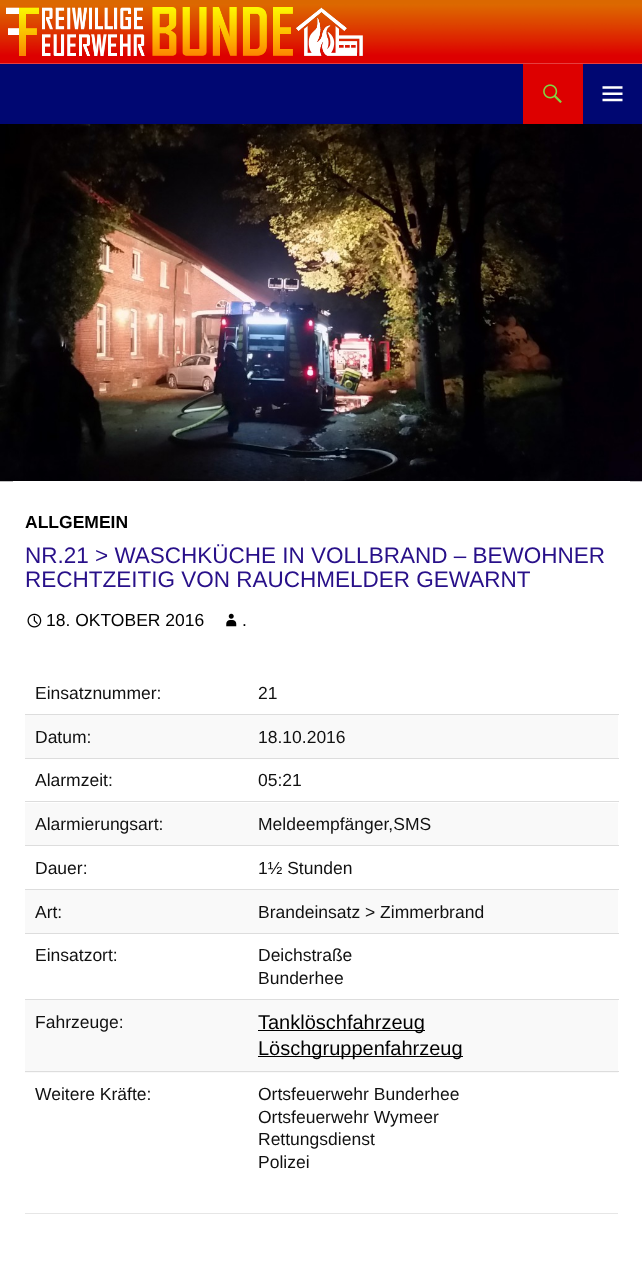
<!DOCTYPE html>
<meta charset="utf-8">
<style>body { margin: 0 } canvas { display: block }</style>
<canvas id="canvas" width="642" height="1268"></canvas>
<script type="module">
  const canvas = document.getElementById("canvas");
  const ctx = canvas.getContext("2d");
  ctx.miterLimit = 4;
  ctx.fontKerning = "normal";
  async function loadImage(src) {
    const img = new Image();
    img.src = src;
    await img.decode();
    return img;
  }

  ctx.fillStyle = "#ffffff";
  ctx.fillRect(0, 0, 642, 1268);
  ctx.drawImage(await loadImage("img1.png"), 0, 0, 642, 64);
  ctx.fillStyle = "#000772";
  ctx.fillRect(0, 64, 642, 60);
  ctx.fillStyle = "#dd0000";
  ctx.fillRect(523, 64, 60, 60);
  ctx.drawImage(await loadImage("img2.png"), 543, 84, 19, 19);
  ctx.drawImage(await loadImage("img3.png"), 602, 86, 21, 16);
  ctx.drawImage(await loadImage("img4.png"), 0, 124, 642, 358);
  ctx.fillStyle = "#ffffff";
  ctx.fillRect(13, 481, 617, 1);
  ctx.font = "bold 17.5px Liberation Sans";
  ctx.fillStyle = "#000000";
  ctx.fillText("ALLGEMEIN", 25, 528);
  ctx.font = "22.5px Liberation Sans";
  ctx.fillStyle = "#281089";
  ctx.fillText("NR.21 > WASCHKÜCHE IN VOLLBRAND – BEWOHNER", 25, 563);
  ctx.fillText("RECHTZEITIG VON RAUCHMELDER GEWARNT", 25, 587);
  ctx.drawImage(await loadImage("img5.png"), 27, 613, 15, 15);
  ctx.font = "17.5px Liberation Sans";
  ctx.fillStyle = "#000000";
  ctx.fillText("18. OKTOBER 2016", 46, 626);
  ctx.drawImage(await loadImage("img6.png"), 226, 613, 11, 14);
  ctx.fillText(".", 242, 626);
  ctx.fillStyle = "#111111";
  ctx.fillText("Einsatznummer:", 35, 699);
  ctx.fillText("21", 258, 699);
  ctx.fillStyle = "#f9f9f9";
  ctx.fillRect(25, 715, 593, 43);
  ctx.fillStyle = "#111111";
  ctx.fillText("Datum:", 35, 743);
  ctx.fillStyle = "#dddddd";
  ctx.fillRect(25, 714, 594, 1);
  ctx.fillStyle = "#111111";
  ctx.fillText("18.10.2016", 258, 743);
  ctx.fillText("Alarmzeit:", 35, 786);
  ctx.fillStyle = "#dddddd";
  ctx.fillRect(25, 758, 594, 1);
  ctx.fillStyle = "#111111";
  ctx.fillText("05:21", 258, 786);
  ctx.fillStyle = "#f9f9f9";
  ctx.fillRect(25, 803, 593, 42);
  ctx.fillStyle = "#111111";
  ctx.fillText("Alarmierungsart:", 35, 830);
  ctx.fillStyle = "#dddddd";
  ctx.fillRect(25, 801, 594, 1);
  ctx.fillStyle = "#111111";
  ctx.fillText("Meldeempfänger,SMS", 258, 830);
  ctx.fillText("Dauer:", 35, 874);
  ctx.fillStyle = "#dddddd";
  ctx.fillRect(25, 845, 594, 1);
  ctx.fillStyle = "#111111";
  ctx.fillText("1½ Stunden", 258, 874);
  ctx.fillStyle = "#f9f9f9";
  ctx.fillRect(25, 890, 593, 43);
  ctx.fillStyle = "#111111";
  ctx.fillText("Art:", 35, 918);
  ctx.fillStyle = "#dddddd";
  ctx.fillRect(25, 889, 594, 1);
  ctx.fillStyle = "#111111";
  ctx.fillText("Brandeinsatz > Zimmerbrand", 258, 918);
  ctx.fillText("Einsatzort:", 35, 961);
  ctx.fillStyle = "#dddddd";
  ctx.fillRect(25, 933, 594, 1);
  ctx.fillStyle = "#111111";
  ctx.fillText("Deichstraße", 258, 961);
  ctx.fillText("Bunderhee", 258, 984);
  ctx.fillStyle = "#f9f9f9";
  ctx.fillRect(25, 1000, 593, 73);
  ctx.fillStyle = "#111111";
  ctx.fillText("Fahrzeuge:", 35, 1028);
  ctx.fillStyle = "#dddddd";
  ctx.fillRect(25, 999, 594, 1);
  ctx.fillStyle = "#000000";
  ctx.fillRect(258, 1030, 167, 1);
  ctx.font = "20px Liberation Sans";
  ctx.fillText("Tanklöschfahrzeug", 258, 1029);
  ctx.fillRect(258, 1056, 205, 1);
  ctx.fillText("Löschgruppenfahrzeug", 258, 1055);
  ctx.font = "17.5px Liberation Sans";
  ctx.fillStyle = "#111111";
  ctx.fillText("Weitere Kräfte:", 35, 1100);
  ctx.fillStyle = "#dddddd";
  ctx.fillRect(25, 1071, 594, 1);
  ctx.fillStyle = "#111111";
  ctx.fillText("Ortsfeuerwehr Bunderhee", 258, 1100);
  ctx.fillText("Ortsfeuerwehr Wymeer", 258, 1123);
  ctx.fillText("Rettungsdienst", 258, 1145);
  ctx.fillText("Polizei", 258, 1168);
  ctx.fillStyle = "#e6e6e6";
  ctx.fillRect(25, 1213, 593, 1);
</script>
